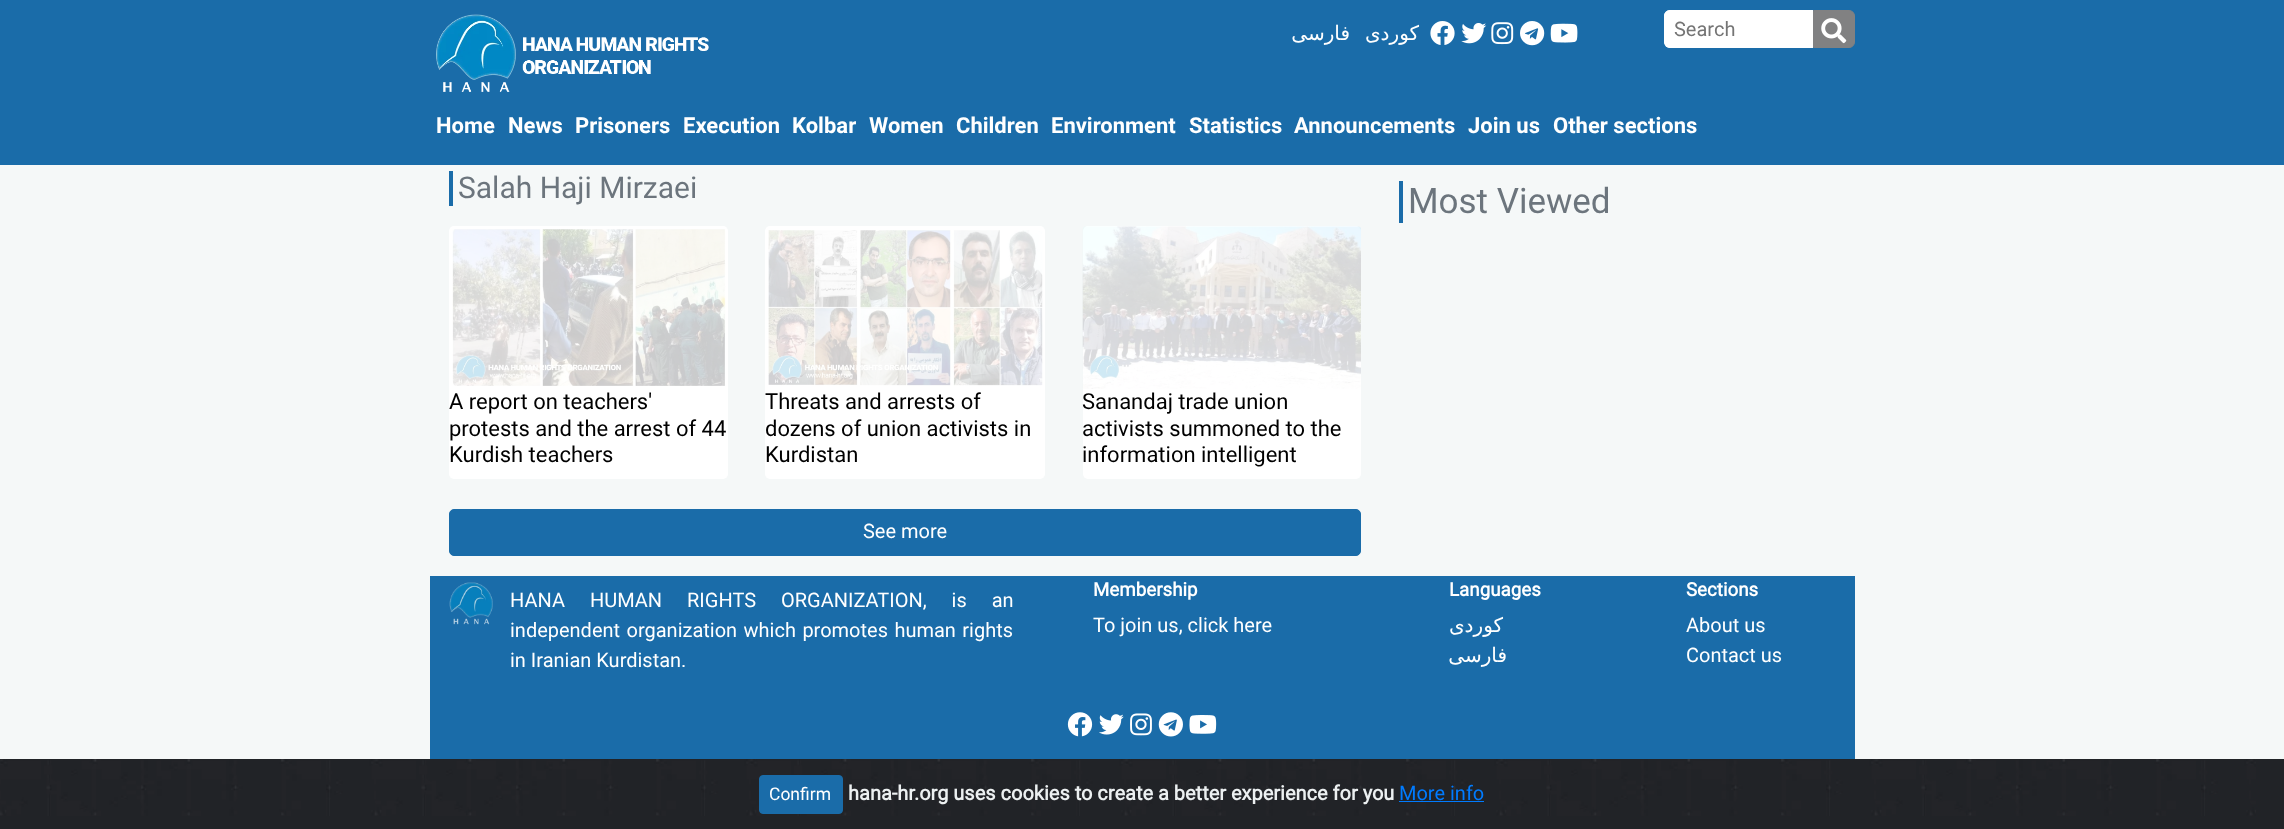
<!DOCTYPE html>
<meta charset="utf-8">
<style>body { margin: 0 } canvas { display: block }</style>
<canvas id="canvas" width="2284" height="829"></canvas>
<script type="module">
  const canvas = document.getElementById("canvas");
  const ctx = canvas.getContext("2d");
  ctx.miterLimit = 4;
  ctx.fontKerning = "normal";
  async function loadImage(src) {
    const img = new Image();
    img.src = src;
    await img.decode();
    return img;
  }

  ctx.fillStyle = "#f5f8f8";
  ctx.fillRect(0, 0, 2284, 829);
  ctx.fillStyle = "#1a6ca9";
  ctx.fillRect(0, 0, 2284, 165);
  ctx.drawImage(await loadImage("img1.png"), 436, 14, 273, 78);
  ctx.direction = "rtl";
  ctx.font = "20px DejaVu Sans";
  ctx.fillStyle = "#ffffff";
  ctx.fillText("فارسی", 1350, 40);
  ctx.fillText("کوردی", 1419, 40);
  ctx.drawImage(await loadImage("img2.png"), 1430, 21, 25, 24);
  ctx.drawImage(await loadImage("img3.png"), 1461, 23, 26, 21);
  ctx.drawImage(await loadImage("img4.png"), 1491, 22, 23, 23);
  ctx.drawImage(await loadImage("img5.png"), 1520, 21, 25, 25);
  ctx.drawImage(await loadImage("img6.png"), 1550, 23, 28, 20);
  ctx.beginPath();
  ctx.roundRect(1664, 10, 149, 38, [6, 0, 0, 6]);
  ctx.fill();
  ctx.beginPath();
  ctx.moveTo(1670, 10);
  ctx.lineTo(1812, 10);
  ctx.lineTo(1812, 48);
  ctx.lineTo(1670, 48);
  ctx.bezierCurveTo(1667, 48, 1664, 45, 1664, 41);
  ctx.lineTo(1664, 16);
  ctx.bezierCurveTo(1664, 13, 1667, 10, 1670, 10);
  ctx.closePath();
  ctx.moveTo(1670, 14);
  ctx.lineTo(1812, 14);
  ctx.lineTo(1812, 44);
  ctx.lineTo(1670, 44);
  ctx.bezierCurveTo(1669, 44, 1668, 43, 1668, 41);
  ctx.lineTo(1668, 16);
  ctx.bezierCurveTo(1668, 15, 1669, 14, 1670, 14);
  ctx.closePath();
  ctx.fill("evenodd");
  ctx.direction = "ltr";
  ctx.font = "20px Roboto";
  ctx.fillStyle = "#757575";
  ctx.fillText("Search", 1674, 36);
  ctx.fillStyle = "#818182";
  ctx.beginPath();
  ctx.roundRect(1813.5, 10.5, 41, 37, [0, 5.5, 5.5, 0]);
  ctx.fill();
  ctx.strokeStyle = "#818182";
  ctx.stroke();
  ctx.drawImage(await loadImage("img7.png"), 1821, 18, 26, 26);
  ctx.font = "bold 22px Roboto";
  ctx.fillStyle = "#ffffff";
  ctx.fillText("Home", 436, 133);
  ctx.fillText("News", 508, 133);
  ctx.fillText("Prisoners", 575, 133);
  ctx.fillText("Execution", 683, 133);
  ctx.fillText("Kolbar", 792, 133);
  ctx.fillText("Women", 869, 133);
  ctx.fillText("Children", 956, 133);
  ctx.fillText("Environment", 1051, 133);
  ctx.fillText("Statistics", 1189, 133);
  ctx.fillText("Announcements", 1294, 133);
  ctx.fillText("Join us", 1468, 133);
  ctx.fillText("Other sections", 1553, 133);
  ctx.fillStyle = "#1a6ca9";
  ctx.fillRect(449, 171, 4, 35);
  ctx.font = "30px Roboto";
  ctx.fillStyle = "#6c757d";
  ctx.fillText("Salah Haji Mirzaei", 458, 198);
  ctx.fillStyle = "#ffffff";
  ctx.beginPath();
  ctx.roundRect(449, 226, 279, 253, 5);
  ctx.fill();
  ctx.drawImage(await loadImage("img8.png"), 452, 229, 274, 157);
  ctx.font = "22px Roboto";
  ctx.fillStyle = "#000000";
  ctx.fillText("A report on teachers'", 449, 409);
  ctx.fillText("protests and the arrest of 44", 449, 436);
  ctx.fillText("Kurdish teachers", 449, 462);
  ctx.fillStyle = "#ffffff";
  ctx.beginPath();
  ctx.roundRect(765, 226, 280, 253, 5);
  ctx.fill();
  ctx.drawImage(await loadImage("img9.png"), 768, 230, 275, 156);
  ctx.fillStyle = "#000000";
  ctx.fillText("Threats and arrests of", 765, 409);
  ctx.fillText("dozens of union activists in", 765, 436);
  ctx.fillText("Kurdistan", 765, 462);
  ctx.fillStyle = "#ffffff";
  ctx.beginPath();
  ctx.roundRect(1083, 226, 278, 253, 5);
  ctx.fill();
  ctx.drawImage(await loadImage("img10.png"), 1082, 226, 279, 163);
  ctx.fillStyle = "#000000";
  ctx.fillText("Sanandaj trade union", 1082, 409);
  ctx.fillText("activists summoned to the", 1082, 436);
  ctx.fillText("information intelligent", 1082, 462);
  ctx.fillStyle = "#1a6ca9";
  ctx.beginPath();
  ctx.roundRect(449.5, 509.5, 911, 46, 4.5);
  ctx.fill();
  ctx.strokeStyle = "#1a6ca9";
  ctx.stroke();
  ctx.font = "20px Roboto";
  ctx.fillStyle = "#ffffff";
  ctx.fillText("See more", 863, 538);
  ctx.fillStyle = "#1a6ca9";
  ctx.fillRect(1399, 181, 4, 42);
  ctx.font = "35px Roboto";
  ctx.fillStyle = "#6c757d";
  ctx.fillText("Most Viewed", 1408, 213);
  ctx.fillStyle = "#1a6ca9";
  ctx.fillRect(430, 576, 1425, 183);
  ctx.drawImage(await loadImage("img11.png"), 449, 582, 44, 43);
  ctx.wordSpacing = "20px";
  ctx.font = "20px Roboto";
  ctx.fillStyle = "#ffffff";
  ctx.fillText("HANA HUMAN RIGHTS ORGANIZATION, is an", 510, 607);
  ctx.wordSpacing = "1.5px";
  ctx.fillText("independent organization which promotes human rights", 510, 637);
  ctx.wordSpacing = "0px";
  ctx.fillText("in Iranian Kurdistan.", 510, 667);
  ctx.font = "bold 18.75px 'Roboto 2'";
  ctx.fillText("Membership", 1093, 596);
  ctx.font = "20px Roboto";
  ctx.fillText("To join us, click here", 1093, 632);
  ctx.font = "bold 18.75px 'Roboto 2'";
  ctx.fillText("Languages", 1449, 596);
  ctx.direction = "rtl";
  ctx.font = "20px DejaVu Sans";
  ctx.fillText("کوردی", 1503, 632);
  ctx.fillText("فارسی", 1507, 662);
  ctx.direction = "ltr";
  ctx.font = "bold 18.75px 'Roboto 2'";
  ctx.fillText("Sections", 1686, 596);
  ctx.font = "20px Roboto";
  ctx.fillText("About us", 1686, 632);
  ctx.fillText("Contact us", 1686, 662);
  ctx.drawImage(await loadImage("img12.png"), 1067, 712, 26, 25);
  ctx.drawImage(await loadImage("img13.png"), 1099, 714, 25, 21);
  ctx.drawImage(await loadImage("img14.png"), 1130, 713, 22, 23);
  ctx.drawImage(await loadImage("img15.png"), 1158, 712, 25, 25);
  ctx.drawImage(await loadImage("img16.png"), 1189, 715, 28, 19);
  ctx.fillStyle = "#212327";
  ctx.fillRect(0, 759, 2284, 70);
  ctx.drawImage(await loadImage("img17.png"), 0, 759, 2256, 57);
  ctx.fillStyle = "#1a6ca9";
  ctx.beginPath();
  ctx.roundRect(759.5, 775.5, 83, 38, 3.5);
  ctx.fill();
  ctx.stroke();
  ctx.font = "17.5px Roboto";
  ctx.fillStyle = "#ffffff";
  ctx.fillText("Confirm", 769, 800);
  ctx.font = "bold 20px 'Roboto 2'";
  ctx.fillStyle = "#ecf0f1";
  ctx.fillText("hana-hr.org uses cookies to create a better experience for you", 848, 800);
  ctx.font = "20px Roboto";
  ctx.fillStyle = "#007bff";
  ctx.fillText("More info", 1399, 800);
  ctx.fillRect(1399, 801, 85, 1);
</script>
